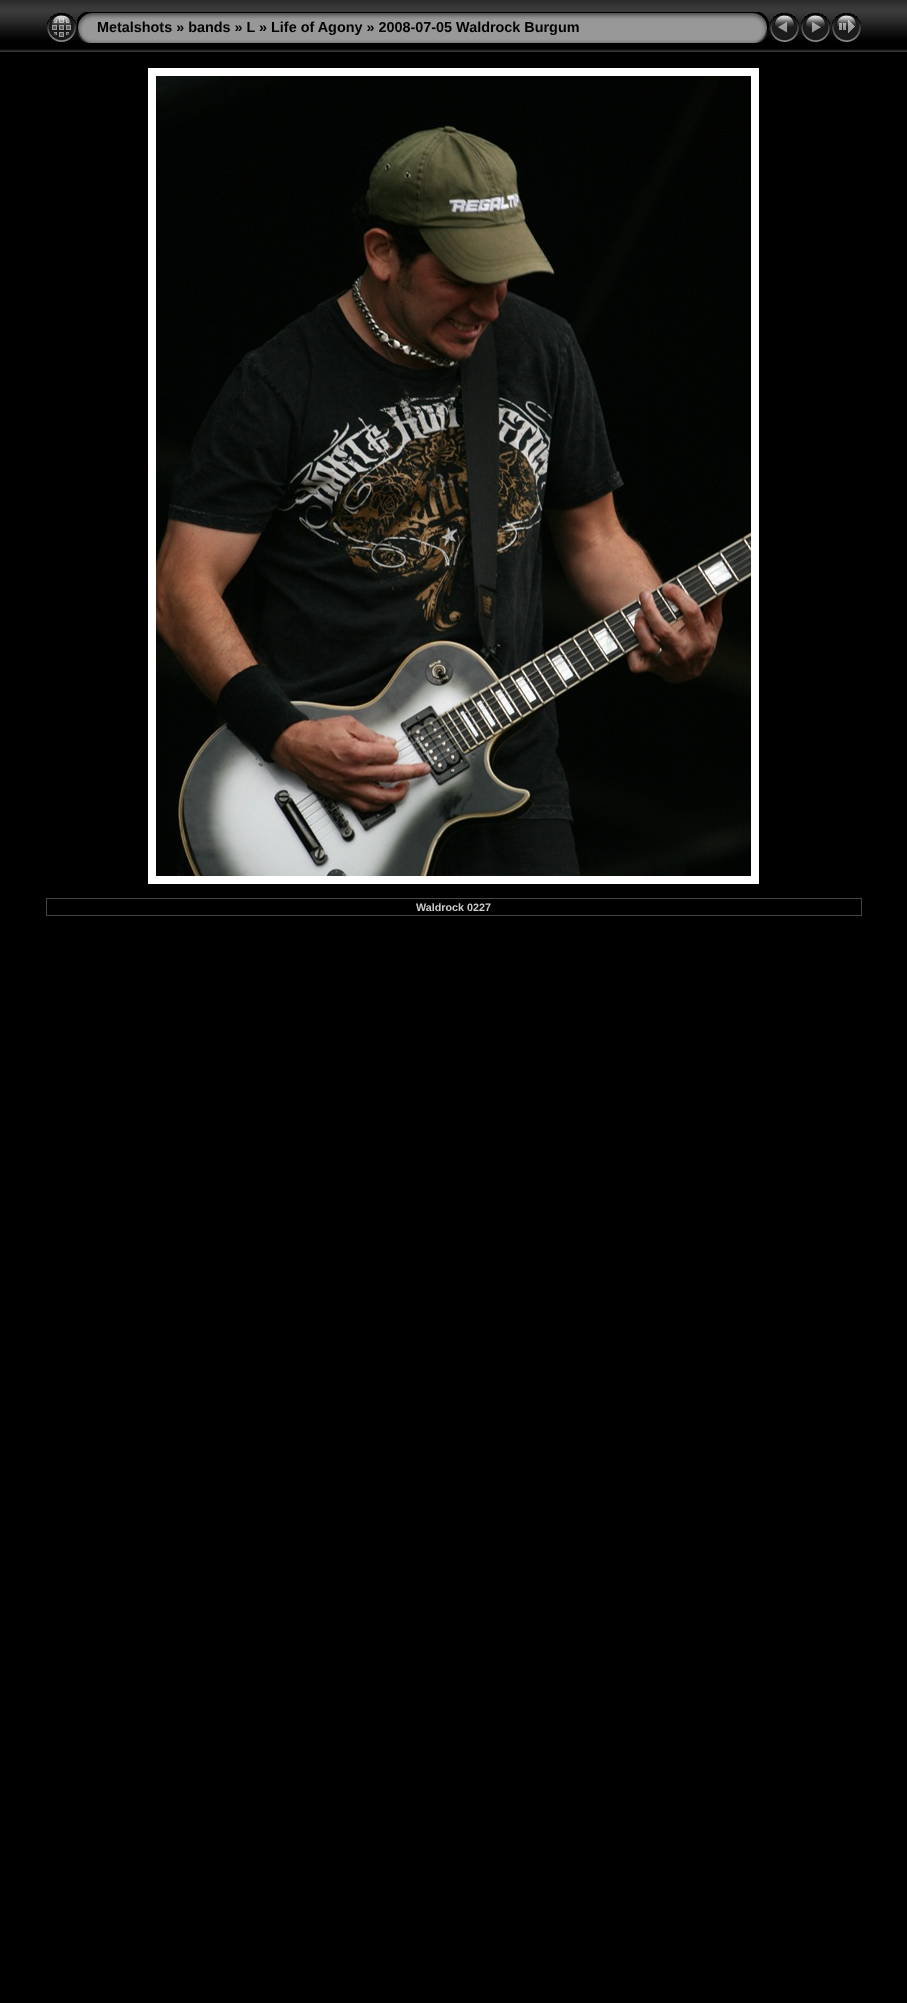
<!DOCTYPE html>
<meta charset="utf-8">
<style>body { margin: 0 } canvas { display: block }</style>
<canvas id="canvas" width="907" height="2003"></canvas>
<script type="module">
  const canvas = document.getElementById("canvas");
  const ctx = canvas.getContext("2d");
  ctx.miterLimit = 4;
  ctx.fontKerning = "normal";
  async function loadImage(src) {
    const img = new Image();
    img.src = src;
    await img.decode();
    return img;
  }

  ctx.fillStyle = "#000000";
  ctx.fillRect(0, 0, 907, 2003);
  ctx.drawImage(await loadImage("img1.png"), 0, 0, 907, 52);
  ctx.drawImage(await loadImage("img2.png"), 47, 13, 29, 29);
  ctx.drawImage(await loadImage("img3.png"), 77, 12, 20, 31);
  ctx.drawImage(await loadImage("img4.png"), 97, 12, 652, 31);
  ctx.font = "bold 14.4px Liberation Sans";
  ctx.fillText("Metalshots » bands » L » Life of Agony » 2008-07-05 Waldrock Burgum", 97, 32);
  ctx.drawImage(await loadImage("img5.png"), 749, 12, 20, 31);
  ctx.drawImage(await loadImage("img6.png"), 770, 13, 29, 29);
  ctx.drawImage(await loadImage("img7.png"), 801, 13, 29, 29);
  ctx.drawImage(await loadImage("img8.png"), 832, 13, 29, 29);
  ctx.strokeStyle = "#ffffff";
  ctx.lineWidth = 8;
  ctx.strokeRect(152, 72, 603, 808);
  ctx.drawImage(await loadImage("img9.png"), 156, 76, 595, 800);
  ctx.fillStyle = "#444444";
  ctx.fillRect(46, 898, 816, 1);
  ctx.fillRect(861, 898, 1, 18);
  ctx.fillRect(46, 915, 816, 1);
  ctx.fillRect(46, 898, 1, 18);
  ctx.font = "bold 10.75px Liberation Sans";
  ctx.fillStyle = "#cccccc";
  ctx.fillText("Waldrock 0227", 416, 911);
</script>
